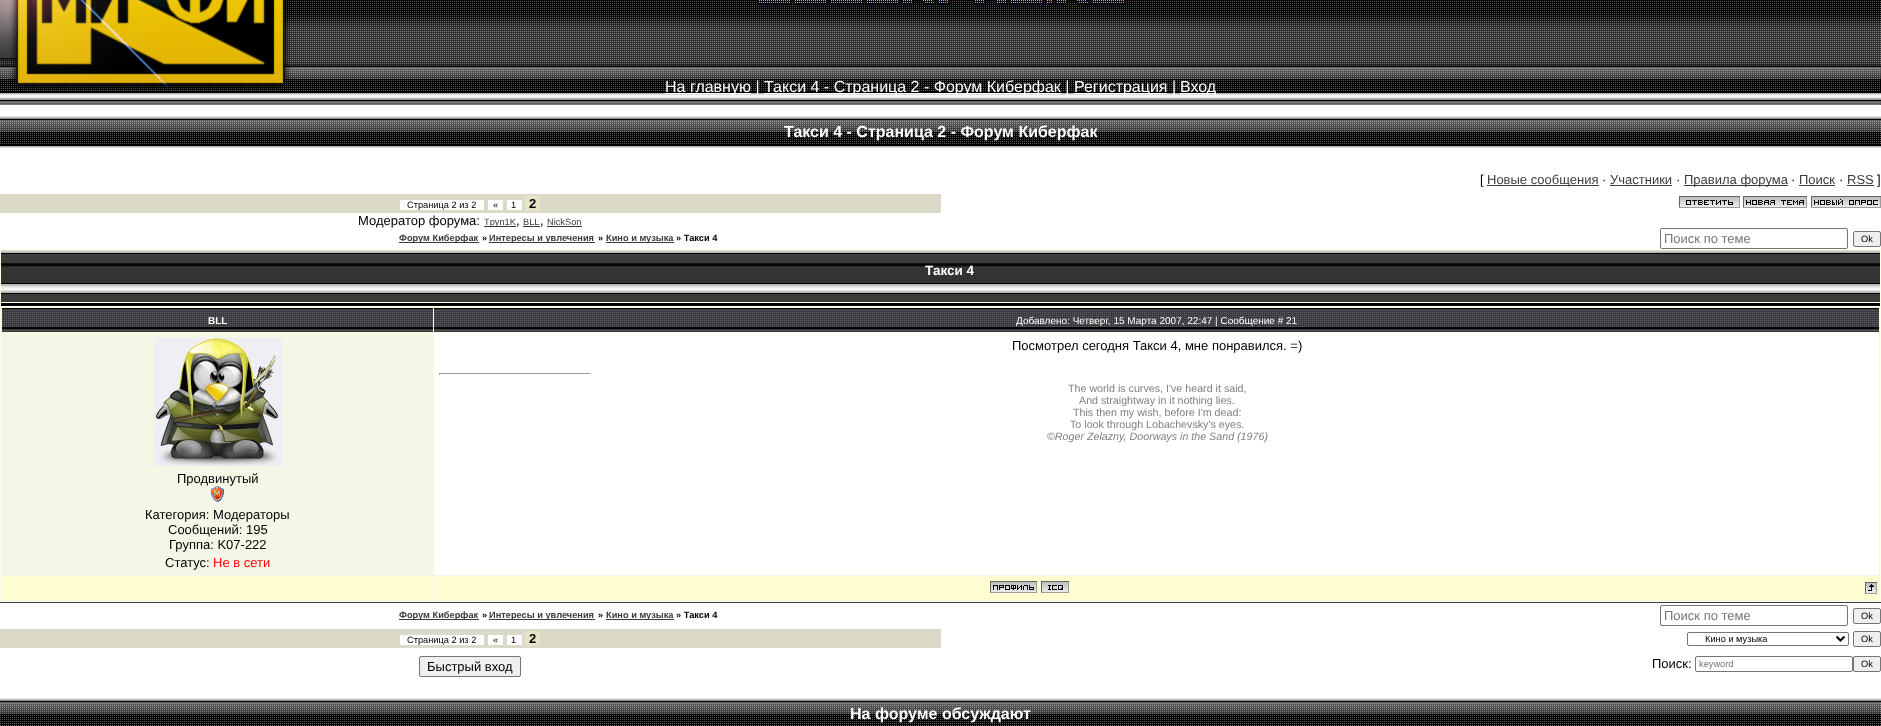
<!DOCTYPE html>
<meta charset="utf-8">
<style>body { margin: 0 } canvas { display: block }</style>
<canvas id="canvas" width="1881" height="726"></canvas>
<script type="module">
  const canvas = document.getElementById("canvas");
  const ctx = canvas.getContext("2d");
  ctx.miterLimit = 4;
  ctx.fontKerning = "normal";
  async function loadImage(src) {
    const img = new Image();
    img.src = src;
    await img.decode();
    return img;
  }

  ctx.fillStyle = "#ffffff";
  ctx.fillRect(0, 0, 1881, 726);
  ctx.drawImage(await loadImage("img1.png"), 0, 0, 1881, 105);
  ctx.drawImage(await loadImage("img2.png"), 752, 0, 379, 10);
  ctx.drawImage(await loadImage("img3.png"), 0, 0, 291, 91);
  ctx.fillRect(665, 93, 86, 1);
  ctx.font = "16px Liberation Sans";
  ctx.fillText("На главную |", 665, 92);
  ctx.fillRect(764, 93, 297, 1);
  ctx.fillText("Такси 4 - Страница 2 - Форум Киберфак |", 764, 92);
  ctx.fillRect(1074, 93, 93, 1);
  ctx.fillText("Регистрация |", 1074, 92);
  ctx.fillRect(1180, 93, 36, 1);
  ctx.fillText("Вход", 1180, 92);
  ctx.drawImage(await loadImage("img4.png"), 0, 116, 1881, 33);
  ctx.font = "bold 16px Liberation Sans";
  ctx.fillText("Такси 4 - Страница 2 - Форум Киберфак", 784, 137);
  ctx.font = "13px Liberation Sans";
  ctx.fillStyle = "#000000";
  ctx.fillText("[", 1480, 184);
  ctx.fillStyle = "#3b3b3b";
  ctx.fillRect(1487, 185, 112, 1);
  ctx.fillText("Новые сообщения", 1487, 184);
  ctx.fillStyle = "#000000";
  ctx.fillText("·", 1602, 184);
  ctx.fillStyle = "#3b3b3b";
  ctx.fillText("Участники", 1610, 184);
  ctx.fillRect(1610, 185, 62, 1);
  ctx.fillStyle = "#000000";
  ctx.fillText("·", 1676, 184);
  ctx.fillStyle = "#3b3b3b";
  ctx.fillRect(1684, 185, 104, 1);
  ctx.fillText("Правила форума", 1684, 184);
  ctx.fillStyle = "#000000";
  ctx.fillText("·", 1791, 184);
  ctx.fillStyle = "#3b3b3b";
  ctx.fillText("Поиск", 1799, 184);
  ctx.fillRect(1799, 185, 36, 1);
  ctx.fillStyle = "#000000";
  ctx.fillText("·", 1839, 184);
  ctx.fillStyle = "#3b3b3b";
  ctx.fillText("RSS", 1847, 184);
  ctx.fillRect(1847, 185, 27, 1);
  ctx.fillStyle = "#000000";
  ctx.fillText("]", 1877, 184);
  ctx.fillStyle = "#dbdac9";
  ctx.fillRect(0, 194, 941, 19);
  ctx.fillStyle = "#ffffff";
  ctx.fillRect(400, 200, 84, 10);
  ctx.font = "9.25px Liberation Sans";
  ctx.fillStyle = "#000000";
  ctx.fillText("Страница 2 из 2", 407, 208);
  ctx.fillStyle = "#ffffff";
  ctx.fillRect(488, 200, 15, 10);
  ctx.fillStyle = "#000000";
  ctx.fillText("«", 493, 208);
  ctx.fillStyle = "#ffffff";
  ctx.fillRect(507, 200, 15, 10);
  ctx.fillStyle = "#000000";
  ctx.fillText("1", 511, 208);
  ctx.fillStyle = "#e6e4c6";
  ctx.fillRect(525, 196, 15, 15);
  ctx.font = "bold 13px Liberation Sans";
  ctx.fillStyle = "#000000";
  ctx.fillText("2", 529, 208);
  ctx.drawImage(await loadImage("img5.png"), 1679, 196, 61, 12);
  ctx.drawImage(await loadImage("img6.png"), 1743, 196, 64, 12);
  ctx.drawImage(await loadImage("img7.png"), 1811, 196, 70, 12);
  ctx.font = "13px Liberation Sans";
  ctx.fillText("Модератор форума:", 358, 225);
  ctx.fillStyle = "#3b3b3b";
  ctx.fillRect(484, 226, 32, 1);
  ctx.font = "9.25px Liberation Sans";
  ctx.fillText("Tpyn1K", 484, 225);
  ctx.font = "13px Liberation Sans";
  ctx.fillStyle = "#000000";
  ctx.fillText(",", 516, 225);
  ctx.font = "9.25px Liberation Sans";
  ctx.fillStyle = "#3b3b3b";
  ctx.fillText("BLL", 523, 225);
  ctx.font = "13px Liberation Sans";
  ctx.fillStyle = "#000000";
  ctx.fillText(",", 540, 225);
  ctx.fillStyle = "#3b3b3b";
  ctx.fillRect(523, 226, 17, 1);
  ctx.fillRect(547, 226, 35, 1);
  ctx.font = "9.25px Liberation Sans";
  ctx.fillText("NickSon", 547, 225);
  ctx.fillRect(399, 242, 80, 1);
  ctx.font = "bold 9.25px Liberation Sans";
  ctx.fillText("Форум Киберфак", 399, 241);
  ctx.fillStyle = "#000000";
  ctx.fillText("»", 482, 241);
  ctx.fillStyle = "#3b3b3b";
  ctx.fillRect(489, 242, 106, 1);
  ctx.fillText("Интересы и увлечения", 489, 241);
  ctx.fillStyle = "#000000";
  ctx.fillText("»", 598, 241);
  ctx.fillStyle = "#3b3b3b";
  ctx.fillRect(606, 242, 68, 1);
  ctx.fillText("Кино и музыка", 606, 241);
  ctx.fillStyle = "#000000";
  ctx.fillText("» Такси 4", 676, 241);
  ctx.beginPath();
  ctx.roundRect(1660.5, 228.5, 187, 20, 1.5);
  ctx.strokeStyle = "#767676";
  ctx.stroke();
  ctx.font = "13px Liberation Sans";
  ctx.fillStyle = "#757575";
  ctx.fillText("Поиск по теме", 1664, 243);
  ctx.fillStyle = "#efefef";
  ctx.beginPath();
  ctx.roundRect(1853.5, 231.5, 27, 15, 1.5);
  ctx.fill();
  ctx.stroke();
  ctx.font = "9.25px Liberation Sans";
  ctx.fillStyle = "#000000";
  ctx.fillText("Ok", 1861, 242);
  ctx.fillStyle = "#fdffe7";
  ctx.fillRect(0, 249, 1881, 353);
  ctx.fillStyle = "#3c3c3c";
  ctx.fillRect(0, 602, 1881, 1);
  ctx.drawImage(await loadImage("img8.png"), 1, 250, 1879, 52);
  ctx.font = "bold 13.5px Liberation Sans";
  ctx.fillStyle = "#ffffff";
  ctx.fillText("Такси 4", 925, 275);
  ctx.fillStyle = "#000000";
  ctx.fillRect(1, 303, 1879, 3);
  ctx.fillStyle = "#f5f6e6";
  ctx.fillRect(1, 307, 1879, 294);
  ctx.fillStyle = "#000000";
  ctx.fillRect(2, 308, 431, 1);
  ctx.drawImage(await loadImage("img9.png"), 2, 309, 431, 23);
  ctx.font = "bold 10px Liberation Sans";
  ctx.fillStyle = "#ffffff";
  ctx.fillText("BLL", 208, 324);
  ctx.fillStyle = "#000000";
  ctx.fillRect(434, 308, 1445, 1);
  ctx.drawImage(await loadImage("img10.png"), 434, 309, 1445, 23);
  ctx.font = "10px Liberation Sans";
  ctx.fillStyle = "#ffffff";
  ctx.fillText("Добавлено: Четверг, 15 Марта 2007, 22:47 | Сообщение # 21", 1016, 324);
  ctx.fillRect(434, 333, 1445, 242);
  ctx.font = "13px Liberation Sans";
  ctx.fillStyle = "#000000";
  ctx.fillText("Посмотрел сегодня Такси 4, мне понравился. =)", 1012, 350);
  ctx.fillStyle = "#9f9f9f";
  ctx.fillRect(439, 373, 152, 1);
  ctx.fillStyle = "#eeeeee";
  ctx.fillRect(590, 373, 1, 2);
  ctx.fillStyle = "#9f9f9f";
  ctx.fillRect(439, 373, 1, 2);
  ctx.font = "10.7px Liberation Sans";
  ctx.fillStyle = "#808080";
  ctx.fillText("The world is curves, I've heard it said,", 1068, 392);
  ctx.fillText("And straightway in it nothing lies.", 1079, 404);
  ctx.fillText("This then my wish, before I'm dead:", 1073, 416);
  ctx.fillText("To look through Lobachevsky's eyes.", 1070, 428);
  ctx.font = "italic 10.7px Liberation Sans";
  ctx.fillText("©Roger Zelazny, Doorways in the Sand (1976)", 1047, 440);
  ctx.drawImage(await loadImage("img11.png"), 154, 338, 128, 128);
  ctx.font = "13px Liberation Sans";
  ctx.fillStyle = "#000000";
  ctx.fillText("Продвинутый", 177, 483);
  ctx.drawImage(await loadImage("img12.png"), 211, 486, 13, 16);
  ctx.fillText("Категория: Модераторы", 145, 519);
  ctx.fillText("Сообщений: 195", 168, 534);
  ctx.fillText("Группа: K07-222", 169, 549);
  ctx.fillText("Статус:", 165, 567);
  ctx.fillStyle = "#ff0000";
  ctx.fillText("Не в сети", 213, 567);
  ctx.fillStyle = "#fefcd1";
  ctx.fillRect(2, 576, 431, 24);
  ctx.fillRect(434, 576, 1445, 24);
  ctx.drawImage(await loadImage("img13.png"), 990, 581, 47, 12);
  ctx.drawImage(await loadImage("img14.png"), 1041, 581, 28, 12);
  ctx.drawImage(await loadImage("img15.png"), 1865, 582, 12, 12);
  ctx.fillStyle = "#3b3b3b";
  ctx.fillRect(399, 619, 80, 1);
  ctx.font = "bold 9.25px Liberation Sans";
  ctx.fillText("Форум Киберфак", 399, 618);
  ctx.fillStyle = "#000000";
  ctx.fillText("»", 482, 618);
  ctx.fillStyle = "#3b3b3b";
  ctx.fillRect(489, 619, 106, 1);
  ctx.fillText("Интересы и увлечения", 489, 618);
  ctx.fillStyle = "#000000";
  ctx.fillText("»", 598, 618);
  ctx.fillStyle = "#3b3b3b";
  ctx.fillRect(606, 619, 68, 1);
  ctx.fillText("Кино и музыка", 606, 618);
  ctx.fillStyle = "#000000";
  ctx.fillText("» Такси 4", 676, 618);
  ctx.beginPath();
  ctx.roundRect(1660.5, 605.5, 187, 20, 1.5);
  ctx.stroke();
  ctx.font = "13px Liberation Sans";
  ctx.fillStyle = "#757575";
  ctx.fillText("Поиск по теме", 1664, 620);
  ctx.fillStyle = "#efefef";
  ctx.beginPath();
  ctx.roundRect(1853.5, 608.5, 27, 15, 1.5);
  ctx.fill();
  ctx.stroke();
  ctx.font = "9.25px Liberation Sans";
  ctx.fillStyle = "#000000";
  ctx.fillText("Ok", 1861, 619);
  ctx.fillStyle = "#dbdac9";
  ctx.fillRect(0, 629, 941, 19);
  ctx.fillStyle = "#ffffff";
  ctx.fillRect(400, 635, 84, 10);
  ctx.fillStyle = "#000000";
  ctx.fillText("Страница 2 из 2", 407, 643);
  ctx.fillStyle = "#ffffff";
  ctx.fillRect(488, 635, 15, 10);
  ctx.fillStyle = "#000000";
  ctx.fillText("«", 493, 643);
  ctx.fillStyle = "#ffffff";
  ctx.fillRect(507, 635, 15, 10);
  ctx.fillStyle = "#000000";
  ctx.fillText("1", 511, 643);
  ctx.fillStyle = "#e6e4c6";
  ctx.fillRect(525, 631, 15, 15);
  ctx.font = "bold 13px Liberation Sans";
  ctx.fillStyle = "#000000";
  ctx.fillText("2", 529, 643);
  ctx.beginPath();
  ctx.roundRect(1687.5, 632.5, 161, 13, 1.5);
  ctx.stroke();
  ctx.beginPath();
  ctx.moveTo(1836.5, 636.5);
  ctx.lineTo(1840.5, 640.5);
  ctx.lineTo(1844.5, 636.5);
  ctx.strokeStyle = "#000000";
  ctx.lineWidth = 2;
  ctx.stroke();
  ctx.font = "9.25px Liberation Sans";
  ctx.fillText("Кино и музыка", 1705, 642);
  ctx.fillStyle = "#efefef";
  ctx.beginPath();
  ctx.roundRect(1853.5, 631.5, 27, 15, 1.5);
  ctx.fill();
  ctx.strokeStyle = "#767676";
  ctx.lineWidth = 1;
  ctx.stroke();
  ctx.fillStyle = "#000000";
  ctx.fillText("Ok", 1861, 642);
  ctx.fillStyle = "#efefef";
  ctx.beginPath();
  ctx.roundRect(419.5, 656.5, 101, 20, 1.5);
  ctx.fill();
  ctx.stroke();
  ctx.font = "13px Liberation Sans";
  ctx.fillStyle = "#000000";
  ctx.fillText("Быстрый вход", 427, 671);
  ctx.fillText("Поиск:", 1652, 668);
  ctx.beginPath();
  ctx.roundRect(1695.5, 656.5, 157, 15, 1.5);
  ctx.stroke();
  ctx.font = "9.25px Liberation Sans";
  ctx.fillStyle = "#757575";
  ctx.fillText("keyword", 1699, 667);
  ctx.fillStyle = "#efefef";
  ctx.beginPath();
  ctx.roundRect(1853.5, 656.5, 27, 15, 1.5);
  ctx.fill();
  ctx.stroke();
  ctx.fillStyle = "#000000";
  ctx.fillText("Ok", 1861, 667);
  ctx.drawImage(await loadImage("img16.png"), 0, 698, 1881, 28);
  ctx.font = "bold 16px Liberation Sans";
  ctx.fillStyle = "#ffffff";
  ctx.fillText("На форуме обсуждают", 850, 719);
</script>
